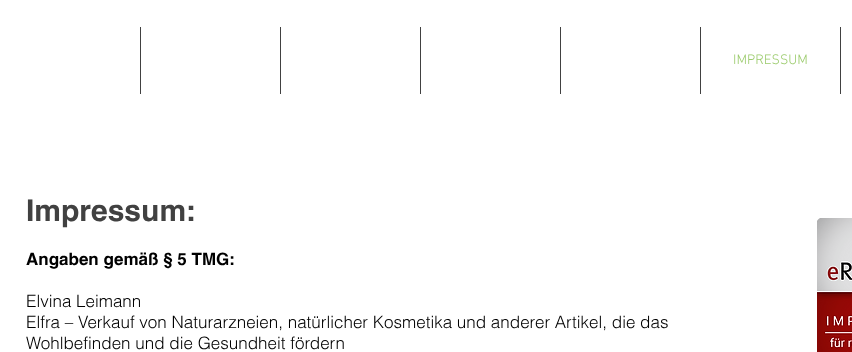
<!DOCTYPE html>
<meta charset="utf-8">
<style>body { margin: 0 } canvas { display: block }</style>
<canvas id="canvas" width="852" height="352"></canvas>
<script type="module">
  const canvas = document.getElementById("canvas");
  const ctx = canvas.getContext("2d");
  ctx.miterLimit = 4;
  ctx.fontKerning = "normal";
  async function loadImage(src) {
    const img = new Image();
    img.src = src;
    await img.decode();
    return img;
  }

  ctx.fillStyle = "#ffffff";
  ctx.fillRect(0, 0, 852, 352);
  ctx.fillStyle = "#414141";
  ctx.fillRect(140, 27, 1, 67);
  ctx.fillRect(280, 27, 1, 67);
  ctx.fillRect(420, 27, 1, 67);
  ctx.fillRect(560, 27, 1, 67);
  ctx.fillRect(700, 27, 1, 67);
  ctx.font = "300 14px 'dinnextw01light'";
  ctx.fillStyle = "#9bcb6c";
  ctx.fillText("IMPRESSUM", 733, 64);
  ctx.fillStyle = "#414141";
  ctx.fillRect(840, 27, 1, 67);
  ctx.font = "bold 30px helvetica";
  ctx.fillText("Impressum:", 26, 221);
  ctx.font = "bold 17px helvetica";
  ctx.fillStyle = "#000000";
  ctx.fillText("Angaben gemäß § 5 TMG:", 26, 265);
  ctx.font = "300 17px helvetica";
  ctx.fillText("Elvina Leimann", 26, 307);
  ctx.fillText("Elfra – Verkauf von Naturarzneien, natürlicher Kosmetika und anderer Artikel, die das", 26, 328);
  ctx.fillText("Wohlbefinden und die Gesundheit fördern", 26, 349);
  ctx.drawImage(await loadImage("img1.png"), 817, 218, 35, 134);
</script>
